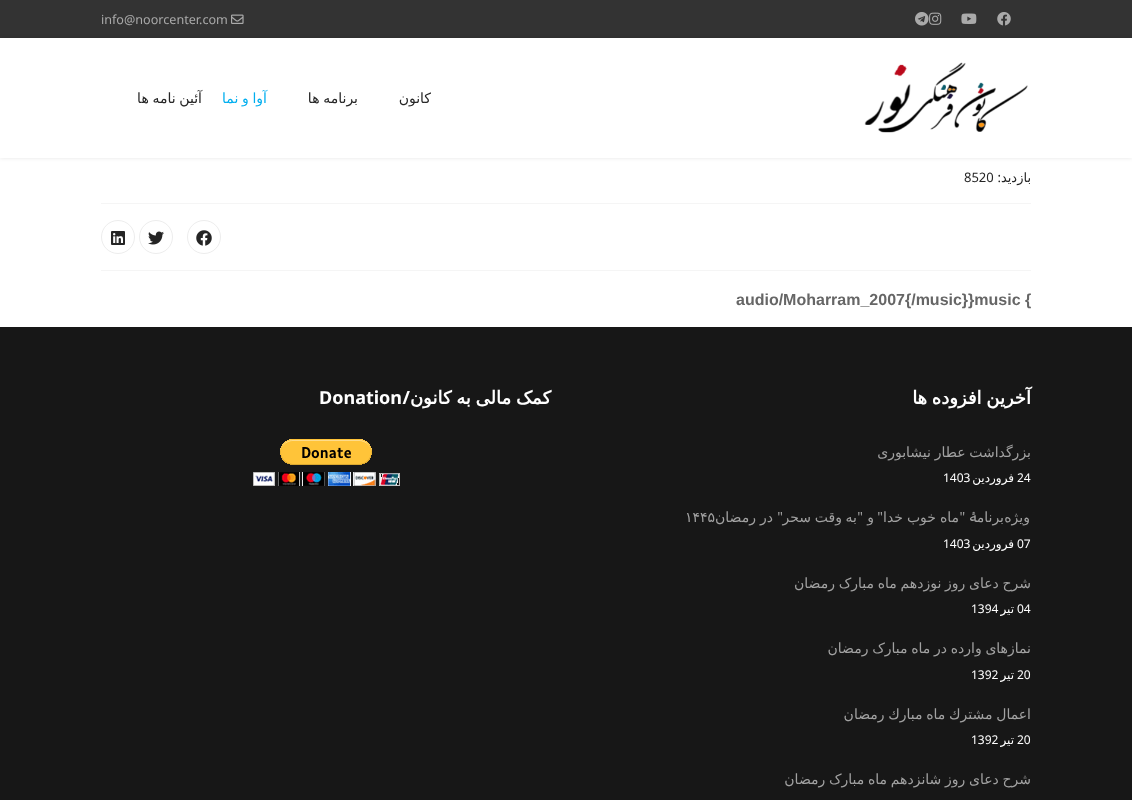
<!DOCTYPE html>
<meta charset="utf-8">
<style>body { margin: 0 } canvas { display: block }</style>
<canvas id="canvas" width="1132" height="800"></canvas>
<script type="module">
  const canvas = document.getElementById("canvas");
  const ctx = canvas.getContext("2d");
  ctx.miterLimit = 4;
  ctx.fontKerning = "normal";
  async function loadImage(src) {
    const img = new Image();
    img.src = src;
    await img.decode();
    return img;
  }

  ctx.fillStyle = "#ffffff";
  ctx.fillRect(0, 0, 1132, 800);
  ctx.fillStyle = "#333333";
  ctx.fillRect(0, 0, 1132, 38);
  ctx.drawImage(await loadImage("img1.png"), 997, 12, 14, 14);
  ctx.drawImage(await loadImage("img2.png"), 961, 13, 16, 11);
  ctx.drawImage(await loadImage("img3.png"), 929, 12, 13, 13);
  ctx.drawImage(await loadImage("img4.png"), 915, 12, 14, 14);
  ctx.drawImage(await loadImage("img5.png"), 231, 14, 13, 10);
  ctx.font = "12.6px Noto Sans";
  ctx.fillStyle = "#aaaaaa";
  ctx.fillText("info@noorcenter.com", 101, 24);
  ctx.save();
  ctx.beginPath();
  ctx.moveTo(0, 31);
  ctx.lineTo(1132, 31);
  ctx.lineTo(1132, 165);
  ctx.lineTo(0, 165);
  ctx.closePath();
  ctx.moveTo(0, 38);
  ctx.lineTo(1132, 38);
  ctx.lineTo(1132, 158);
  ctx.lineTo(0, 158);
  ctx.closePath();
  ctx.clip("evenodd");
  ctx.fillStyle = "rgba(0, 0, 0, 0.1)";
  ctx.filter = "blur(2px)";
  ctx.beginPath();
  ctx.rect(0, 38, 1132, 120);
  ctx.fill();
  ctx.filter = "none";
  ctx.restore();
  ctx.drawImage(await loadImage("img6.png"), 864, 62, 164, 71);
  ctx.direction = "rtl";
  ctx.font = "14px DejaVu Sans";
  ctx.fillStyle = "#252525";
  ctx.fillText("کانون", 431, 103);
  ctx.wordSpacing = "-0.75px";
  ctx.fillText("برنامه ها", 358, 103);
  ctx.fillStyle = "#00aeef";
  ctx.fillText("آوا و نما", 267, 103);
  ctx.fillStyle = "#252525";
  ctx.fillText("آئین نامه ها", 202, 103);
  ctx.wordSpacing = "0px";
  ctx.font = "13px DejaVu Sans";
  ctx.fillText("بازدید", 1031, 182);
  ctx.font = "13px Noto Sans";
  ctx.fillText(":", 1001, 182);
  ctx.direction = "ltr";
  ctx.fillText("8520", 964, 182);
  ctx.fillStyle = "#f5f5f5";
  ctx.fillRect(101, 203, 930, 1);
  ctx.fillRect(101, 270, 930, 1);
  ctx.beginPath();
  ctx.arc(204, 237, 16.5, 0, Math.PI * 2);
  ctx.strokeStyle = "#ededed";
  ctx.stroke();
  ctx.drawImage(await loadImage("img7.png"), 196, 230, 16, 16);
  ctx.beginPath();
  ctx.arc(156, 237, 16.5, 0, Math.PI * 2);
  ctx.stroke();
  ctx.drawImage(await loadImage("img8.png"), 148, 231, 16, 14);
  ctx.beginPath();
  ctx.arc(118, 237, 16.5, 0, Math.PI * 2);
  ctx.stroke();
  ctx.drawImage(await loadImage("img9.png"), 111, 231, 14, 14);
  ctx.font = "bold 16px Liberation Sans";
  ctx.fillStyle = "#666666";
  ctx.fillText("audio/Moharram_2007{/music}}music {", 736, 305);
  ctx.fillStyle = "#171717";
  ctx.fillRect(0, 327, 1132, 473);
  ctx.wordSpacing = "-1px";
  ctx.direction = "rtl";
  ctx.font = "bold 18px DejaVu Sans";
  ctx.fillStyle = "#ffffff";
  ctx.fillText("آخرین افزوده ها", 1031, 404);
  ctx.wordSpacing = "-0.75px";
  ctx.font = "14px DejaVu Sans";
  ctx.fillStyle = "#a2a2a2";
  ctx.fillText("بزرگداشت عطار نیشابوری", 1031, 457);
  ctx.wordSpacing = "0px";
  ctx.direction = "ltr";
  ctx.font = "12px Noto Sans";
  ctx.fillStyle = "#ffffff";
  ctx.fillText("24", 1017, 482);
  ctx.direction = "rtl";
  ctx.font = "12px DejaVu Sans";
  ctx.fillText("فروردين", 1014, 482);
  ctx.direction = "ltr";
  ctx.font = "12px Noto Sans";
  ctx.fillText("1403", 943, 482);
  ctx.direction = "rtl";
  ctx.font = "14px DejaVu Sans";
  ctx.fillStyle = "#a2a2a2";
  ctx.fillText("ویژه", 1030, 522);
  ctx.fillText("برنام‍", 1004, 522);
  ctx.font = "14px Noto Sans";
  ctx.fillText("‍ۀ \"", 977, 522);
  ctx.font = "14px DejaVu Sans";
  ctx.fillText("ماه", 959, 522);
  ctx.fillText("خوب", 936, 522);
  ctx.fillText("خدا", 903, 522);
  ctx.font = "14px Noto Sans";
  ctx.fillText("\"", 883, 522);
  ctx.font = "14px DejaVu Sans";
  ctx.fillText("و", 874, 522);
  ctx.font = "14px Noto Sans";
  ctx.fillText("\"", 863, 522);
  ctx.font = "14px DejaVu Sans";
  ctx.fillText("به", 857, 522);
  ctx.fillText("وقت", 842, 522);
  ctx.fillText("سحر", 811, 522);
  ctx.font = "14px Noto Sans";
  ctx.fillText("\"", 783, 522);
  ctx.font = "14px DejaVu Sans";
  ctx.fillText("در", 773, 522);
  ctx.fillText("رمضان", 756, 522);
  ctx.direction = "ltr";
  ctx.fillText("۱۴۴۵", 685, 522);
  ctx.font = "12px Noto Sans";
  ctx.fillStyle = "#ffffff";
  ctx.fillText("07", 1017, 548);
  ctx.direction = "rtl";
  ctx.font = "12px DejaVu Sans";
  ctx.fillText("فروردين", 1014, 548);
  ctx.direction = "ltr";
  ctx.font = "12px Noto Sans";
  ctx.fillText("1403", 943, 548);
  ctx.wordSpacing = "-0.75px";
  ctx.direction = "rtl";
  ctx.font = "14px DejaVu Sans";
  ctx.fillStyle = "#a2a2a2";
  ctx.fillText("شرح دعای روز نوزدهم ماه مبارک رمضان", 1031, 588);
  ctx.wordSpacing = "0px";
  ctx.direction = "ltr";
  ctx.font = "12px Noto Sans";
  ctx.fillStyle = "#ffffff";
  ctx.fillText("04", 1017, 613);
  ctx.direction = "rtl";
  ctx.font = "12px DejaVu Sans";
  ctx.fillText("تیر", 1014, 613);
  ctx.direction = "ltr";
  ctx.font = "12px Noto Sans";
  ctx.fillText("1394", 971, 613);
  ctx.wordSpacing = "-0.75px";
  ctx.direction = "rtl";
  ctx.font = "14px DejaVu Sans";
  ctx.fillStyle = "#a2a2a2";
  ctx.fillText("نمازهاى وارده در ماه مبارک رمضان", 1031, 653);
  ctx.wordSpacing = "0px";
  ctx.direction = "ltr";
  ctx.font = "12px Noto Sans";
  ctx.fillStyle = "#ffffff";
  ctx.fillText("20", 1017, 679);
  ctx.direction = "rtl";
  ctx.font = "12px DejaVu Sans";
  ctx.fillText("تیر", 1014, 679);
  ctx.direction = "ltr";
  ctx.font = "12px Noto Sans";
  ctx.fillText("1392", 971, 679);
  ctx.wordSpacing = "-0.75px";
  ctx.direction = "rtl";
  ctx.font = "14px DejaVu Sans";
  ctx.fillStyle = "#a2a2a2";
  ctx.fillText("اعمال مشترك ماه مبارك رمضان", 1031, 719);
  ctx.wordSpacing = "0px";
  ctx.direction = "ltr";
  ctx.font = "12px Noto Sans";
  ctx.fillStyle = "#ffffff";
  ctx.fillText("20", 1017, 744);
  ctx.direction = "rtl";
  ctx.font = "12px DejaVu Sans";
  ctx.fillText("تیر", 1014, 744);
  ctx.direction = "ltr";
  ctx.font = "12px Noto Sans";
  ctx.fillText("1392", 971, 744);
  ctx.wordSpacing = "-0.75px";
  ctx.direction = "rtl";
  ctx.font = "14px DejaVu Sans";
  ctx.fillStyle = "#a2a2a2";
  ctx.fillText("شرح دعای روز شانزدهم ماه مبارک رمضان", 1031, 784);
  ctx.wordSpacing = "-1px";
  ctx.font = "bold 18px DejaVu Sans";
  ctx.fillStyle = "#ffffff";
  ctx.fillText("کمک مالی به کانون", 551, 404);
  ctx.wordSpacing = "0px";
  ctx.font = "bold 18px Noto Sans";
  ctx.fillText("/", 410, 404);
  ctx.direction = "ltr";
  ctx.fillText("Donation", 319, 404);
  ctx.drawImage(await loadImage("img10.png"), 253, 439, 147, 47);
</script>
